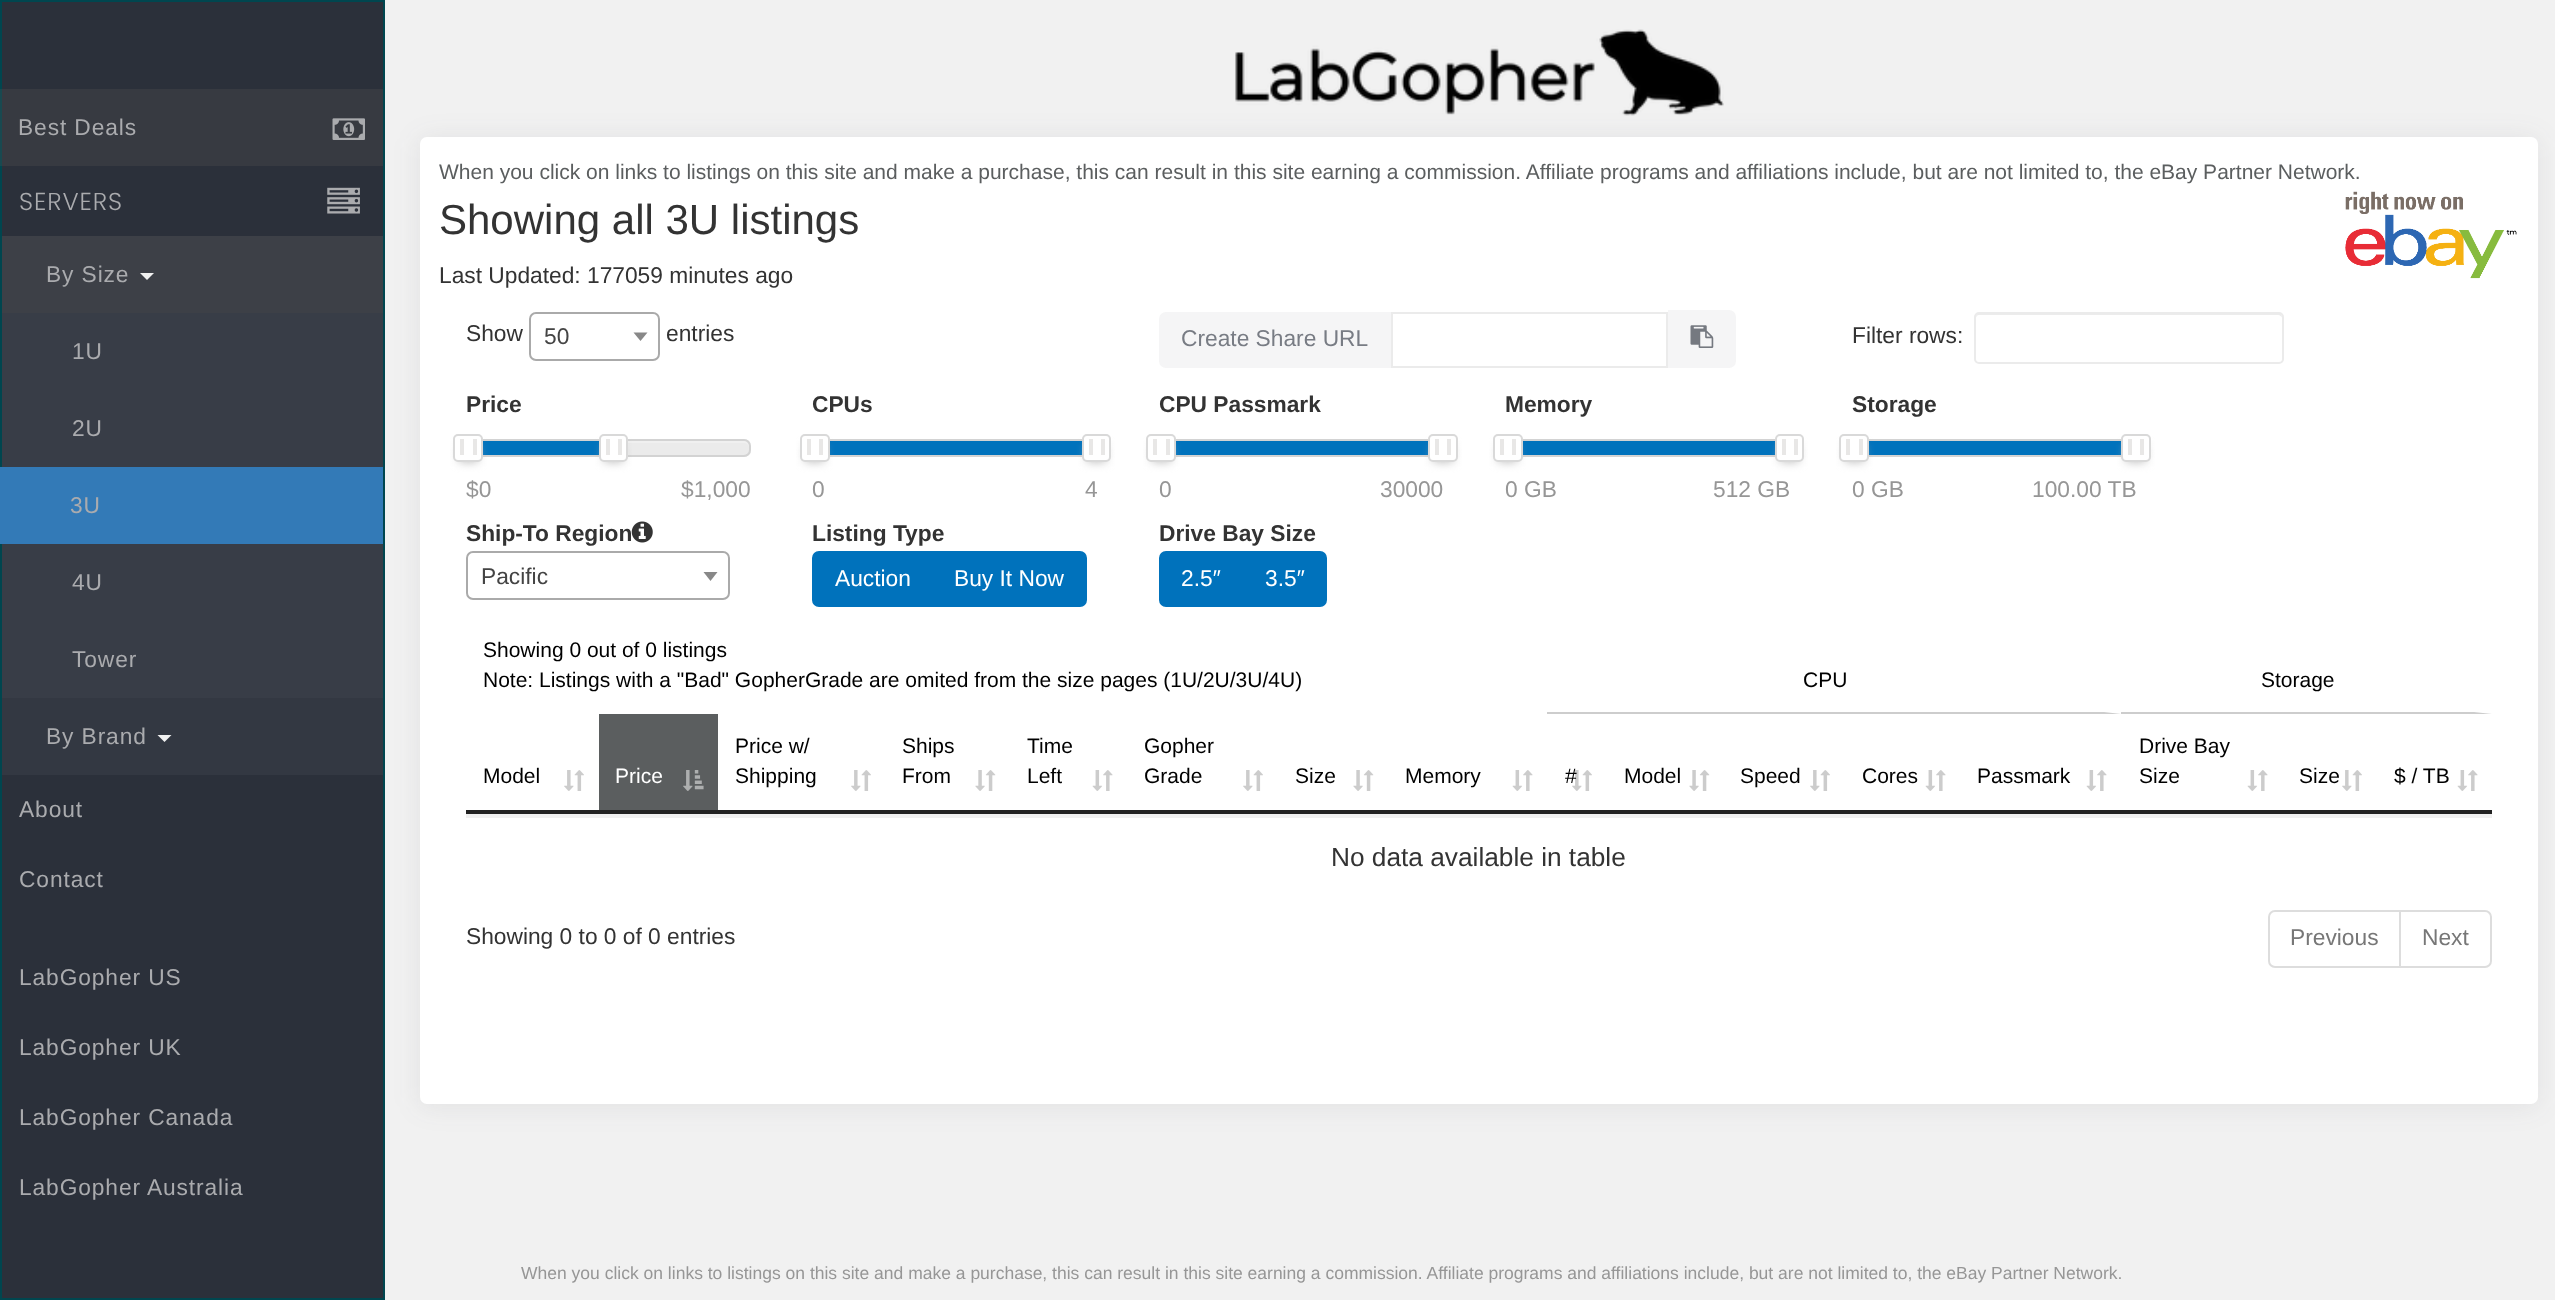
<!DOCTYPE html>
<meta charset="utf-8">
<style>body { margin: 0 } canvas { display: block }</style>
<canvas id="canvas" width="2555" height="1300"></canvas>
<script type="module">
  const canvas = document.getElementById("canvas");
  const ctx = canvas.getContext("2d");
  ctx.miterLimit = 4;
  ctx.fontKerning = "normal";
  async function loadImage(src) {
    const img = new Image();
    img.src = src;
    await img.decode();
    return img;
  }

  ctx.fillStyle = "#f1f1f1";
  ctx.fillRect(0, 0, 2555, 1300);
  ctx.fillStyle = "rgba(69, 65, 78, 0.08)";
  ctx.filter = "blur(13px)";
  ctx.beginPath();
  ctx.roundRect(418, 137, 2121, 971, 9);
  ctx.fill();
  ctx.filter = "none";
  ctx.fillStyle = "#2b303a";
  ctx.beginPath();
  ctx.rect(1, 1, 383, 1298);
  ctx.fill();
  ctx.strokeStyle = "#00464f";
  ctx.lineWidth = 2;
  ctx.stroke();
  ctx.fillStyle = "rgba(83, 83, 83, 0.3)";
  ctx.fillRect(0, 89, 383, 77);
  ctx.letterSpacing = "0.9px";
  ctx.font = "22.75px Liberation Sans";
  ctx.fillStyle = "#aaabae";
  ctx.fillText("Best Deals", 18, 135);
  ctx.drawImage(await loadImage("img1.png"), 332, 118, 33, 22);
  ctx.font = "300 24.5px Poppins";
  ctx.fillText("SERVERS", 19, 210);
  ctx.drawImage(await loadImage("img2.png"), 327, 187, 33, 27);
  ctx.fillStyle = "#3d4047";
  ctx.fillRect(2, 236, 381, 77);
  ctx.font = "22.75px Liberation Sans";
  ctx.fillStyle = "#aaabae";
  ctx.fillText("By Size", 46, 282);
  ctx.fillStyle = "#f1f1f1";
  ctx.beginPath();
  ctx.moveTo(140, 273);
  ctx.lineTo(154, 273);
  ctx.lineTo(147, 280);
  ctx.closePath();
  ctx.fill();
  ctx.fillStyle = "#383d47";
  ctx.fillRect(2, 313, 381, 154);
  ctx.fillStyle = "#aaabae";
  ctx.fillText("1U", 72, 359);
  ctx.fillText("2U", 72, 436);
  ctx.fillStyle = "#337ab7";
  ctx.fillRect(0, 467, 383, 77);
  ctx.fillStyle = "#aaabae";
  ctx.fillText("3U", 70, 513);
  ctx.fillStyle = "#383d47";
  ctx.fillRect(2, 544, 381, 154);
  ctx.fillStyle = "#aaabae";
  ctx.fillText("4U", 72, 590);
  ctx.fillText("Tower", 72, 667);
  ctx.fillStyle = "#333842";
  ctx.fillRect(2, 698, 381, 77);
  ctx.fillStyle = "#aaabae";
  ctx.fillText("By Brand", 46, 744);
  ctx.fillStyle = "#f1f1f1";
  ctx.beginPath();
  ctx.moveTo(157.5, 735);
  ctx.lineTo(171.5, 735);
  ctx.lineTo(164.5, 742);
  ctx.closePath();
  ctx.fill();
  ctx.fillStyle = "#aaabae";
  ctx.fillText("About", 19, 817);
  ctx.fillText("Contact", 19, 887);
  ctx.fillText("LabGopher US", 19, 985);
  ctx.fillText("LabGopher UK", 19, 1055);
  ctx.fillText("LabGopher Canada", 19, 1125);
  ctx.fillText("LabGopher Australia", 19, 1195);
  ctx.drawImage(await loadImage("img3.png"), 1235, 29, 489, 87);
  ctx.fillStyle = "#ffffff";
  ctx.beginPath();
  ctx.roundRect(420, 137, 2118, 967, 7);
  ctx.fill();
  ctx.letterSpacing = "0px";
  ctx.font = "21px Liberation Sans";
  ctx.fillStyle = "#5b5e5f";
  ctx.fillText("When you click on links to listings on this site and make a purchase, this can result in this site earning a commission. Affiliate programs and affiliations include, but are not limited to, the eBay Partner Network.", 439, 179);
  ctx.font = "42px Liberation Sans";
  ctx.fillStyle = "#333333";
  ctx.fillText("Showing all 3U listings", 439, 234);
  ctx.drawImage(await loadImage("img4.png"), 2345, 191, 172, 88);
  ctx.font = "22.75px Liberation Sans";
  ctx.fillText("Last Updated: 177059 minutes ago", 439, 283);
  ctx.fillText("Show", 466, 341);
  ctx.beginPath();
  ctx.roundRect(530, 313, 129, 47, 6);
  ctx.strokeStyle = "#aaaaaa";
  ctx.stroke();
  ctx.fillStyle = "#444444";
  ctx.fillText("50", 544, 344);
  ctx.fillStyle = "#888888";
  ctx.beginPath();
  ctx.moveTo(633.5, 332.5);
  ctx.lineTo(647.5, 332.5);
  ctx.lineTo(640.5, 341);
  ctx.closePath();
  ctx.fill();
  ctx.fillStyle = "#333333";
  ctx.fillText("entries", 666, 341);
  ctx.fillStyle = "#f5f5f6";
  ctx.beginPath();
  ctx.roundRect(1159, 312, 232, 56, [7, 0, 0, 7]);
  ctx.fill();
  ctx.fillStyle = "#787c84";
  ctx.fillText("Create Share URL", 1181, 346);
  ctx.strokeStyle = "#ebebeb";
  ctx.strokeRect(1392, 313, 275, 54);
  ctx.fillStyle = "#f5f5f6";
  ctx.beginPath();
  ctx.roundRect(1668, 310, 68, 58, [0, 7, 7, 0]);
  ctx.fill();
  ctx.drawImage(await loadImage("img5.png"), 1690, 325, 24, 23);
  ctx.fillStyle = "#333333";
  ctx.fillText("Filter rows:", 1852, 343);
  ctx.fillStyle = "#ececec";
  ctx.beginPath();
  ctx.moveTo(1979, 315);
  ctx.lineTo(2278, 315);
  ctx.bezierCurveTo(2280, 315, 2282, 317, 2282, 318);
  ctx.bezierCurveTo(2282, 315, 2281, 313, 2278, 313);
  ctx.lineTo(1980, 313);
  ctx.lineTo(1977, 314);
  ctx.bezierCurveTo(1976, 315, 1976, 317, 1976, 318);
  ctx.bezierCurveTo(1976, 317, 1977, 315, 1979, 315);
  ctx.closePath();
  ctx.fill();
  ctx.beginPath();
  ctx.roundRect(1975, 313, 308, 50, 4);
  ctx.stroke();
  ctx.font = "bold 22.75px Liberation Sans";
  ctx.fillStyle = "#333333";
  ctx.fillText("Price", 466, 412);
  ctx.fillStyle = "#ebebeb";
  ctx.beginPath();
  ctx.roundRect(466, 439, 285, 18, 7);
  ctx.fill();
  ctx.fillStyle = "#f0f0f0";
  ctx.beginPath();
  ctx.moveTo(472, 443);
  ctx.lineTo(744, 443);
  ctx.bezierCurveTo(747, 443, 748, 445, 749, 447);
  ctx.lineTo(749, 446);
  ctx.bezierCurveTo(749, 443, 747, 441, 744, 441);
  ctx.lineTo(472, 441);
  ctx.bezierCurveTo(469, 441, 467, 443, 467, 446);
  ctx.lineTo(467, 448);
  ctx.bezierCurveTo(468, 445, 469, 443, 472, 443);
  ctx.closePath();
  ctx.fill();
  ctx.beginPath();
  ctx.roundRect(467, 440, 283, 16, 6);
  ctx.strokeStyle = "#d3d3d3";
  ctx.stroke();
  ctx.fillStyle = "#0072bc";
  ctx.fillRect(483, 441, 116, 14);
  ctx.fillStyle = "#bbbbbb";
  ctx.filter = "blur(5px)";
  ctx.beginPath();
  ctx.rect(459, 445, 19, 17);
  ctx.fill();
  ctx.filter = "none";
  ctx.fillStyle = "#ffffff";
  ctx.beginPath();
  ctx.roundRect(454, 435, 28, 26, 4);
  ctx.fill();
  ctx.strokeStyle = "#d9d9d9";
  ctx.stroke();
  ctx.fillStyle = "#e8e7e6";
  ctx.fillRect(460, 439, 4, 16);
  ctx.fillRect(473, 439, 4, 16);
  ctx.fillStyle = "#bbbbbb";
  ctx.filter = "blur(5px)";
  ctx.beginPath();
  ctx.rect(604, 445, 19, 17);
  ctx.fill();
  ctx.filter = "none";
  ctx.fillStyle = "#ffffff";
  ctx.beginPath();
  ctx.roundRect(600, 435, 27, 26, 4);
  ctx.fill();
  ctx.stroke();
  ctx.fillStyle = "#e8e7e6";
  ctx.fillRect(606, 439, 4, 16);
  ctx.fillRect(618, 439, 4, 16);
  ctx.font = "22.75px Liberation Sans";
  ctx.fillStyle = "#969696";
  ctx.fillText("$0", 466, 497);
  ctx.fillText("$1,000", 681, 497);
  ctx.font = "bold 22.75px Liberation Sans";
  ctx.fillStyle = "#333333";
  ctx.fillText("CPUs", 812, 412);
  ctx.strokeStyle = "#d3d3d3";
  ctx.strokeRect(813, 440, 283, 16);
  ctx.fillStyle = "#0072bc";
  ctx.fillRect(830, 441, 252, 14);
  ctx.fillStyle = "#bbbbbb";
  ctx.filter = "blur(5px)";
  ctx.beginPath();
  ctx.rect(805, 445, 19, 17);
  ctx.fill();
  ctx.filter = "none";
  ctx.fillStyle = "#ffffff";
  ctx.beginPath();
  ctx.roundRect(801, 435, 28, 26, 4);
  ctx.fill();
  ctx.strokeStyle = "#d9d9d9";
  ctx.stroke();
  ctx.fillStyle = "#e8e7e6";
  ctx.fillRect(807, 439, 4, 16);
  ctx.fillRect(819, 439, 4, 16);
  ctx.fillStyle = "#bbbbbb";
  ctx.filter = "blur(5px)";
  ctx.beginPath();
  ctx.rect(1087, 445, 19, 17);
  ctx.fill();
  ctx.filter = "none";
  ctx.fillStyle = "#ffffff";
  ctx.beginPath();
  ctx.roundRect(1083, 435, 27, 26, 4);
  ctx.fill();
  ctx.stroke();
  ctx.fillStyle = "#e8e7e6";
  ctx.fillRect(1089, 439, 4, 16);
  ctx.fillRect(1101, 439, 4, 16);
  ctx.font = "22.75px Liberation Sans";
  ctx.fillStyle = "#969696";
  ctx.fillText("0", 812, 497);
  ctx.fillText("4", 1085, 497);
  ctx.font = "bold 22.75px Liberation Sans";
  ctx.fillStyle = "#333333";
  ctx.fillText("CPU Passmark", 1159, 412);
  ctx.strokeStyle = "#d3d3d3";
  ctx.strokeRect(1160, 440, 283, 16);
  ctx.fillStyle = "#0072bc";
  ctx.fillRect(1176, 441, 252, 14);
  ctx.fillStyle = "#bbbbbb";
  ctx.filter = "blur(5px)";
  ctx.beginPath();
  ctx.rect(1152, 445, 19, 17);
  ctx.fill();
  ctx.filter = "none";
  ctx.fillStyle = "#ffffff";
  ctx.beginPath();
  ctx.roundRect(1147, 435, 28, 26, 4);
  ctx.fill();
  ctx.strokeStyle = "#d9d9d9";
  ctx.stroke();
  ctx.fillStyle = "#e8e7e6";
  ctx.fillRect(1153, 439, 4, 16);
  ctx.fillRect(1166, 439, 4, 16);
  ctx.fillStyle = "#bbbbbb";
  ctx.filter = "blur(5px)";
  ctx.beginPath();
  ctx.rect(1433, 445, 20, 17);
  ctx.fill();
  ctx.filter = "none";
  ctx.fillStyle = "#ffffff";
  ctx.beginPath();
  ctx.roundRect(1429, 435, 28, 26, 4);
  ctx.fill();
  ctx.stroke();
  ctx.fillStyle = "#e8e7e6";
  ctx.fillRect(1435, 439, 4, 16);
  ctx.fillRect(1447, 439, 4, 16);
  ctx.font = "22.75px Liberation Sans";
  ctx.fillStyle = "#969696";
  ctx.fillText("0", 1159, 497);
  ctx.fillText("30000", 1380, 497);
  ctx.font = "bold 22.75px Liberation Sans";
  ctx.fillStyle = "#333333";
  ctx.fillText("Memory", 1505, 412);
  ctx.strokeStyle = "#d3d3d3";
  ctx.strokeRect(1506, 440, 283, 16);
  ctx.fillStyle = "#0072bc";
  ctx.fillRect(1523, 441, 252, 14);
  ctx.fillStyle = "#bbbbbb";
  ctx.filter = "blur(5px)";
  ctx.beginPath();
  ctx.rect(1498, 445, 19, 17);
  ctx.fill();
  ctx.filter = "none";
  ctx.fillStyle = "#ffffff";
  ctx.beginPath();
  ctx.roundRect(1494, 435, 28, 26, 4);
  ctx.fill();
  ctx.strokeStyle = "#d9d9d9";
  ctx.stroke();
  ctx.fillStyle = "#e8e7e6";
  ctx.fillRect(1500, 439, 4, 16);
  ctx.fillRect(1512, 439, 4, 16);
  ctx.fillStyle = "#bbbbbb";
  ctx.filter = "blur(5px)";
  ctx.beginPath();
  ctx.rect(1780, 445, 19, 17);
  ctx.fill();
  ctx.filter = "none";
  ctx.fillStyle = "#ffffff";
  ctx.beginPath();
  ctx.roundRect(1776, 435, 27, 26, 4);
  ctx.fill();
  ctx.stroke();
  ctx.fillStyle = "#e8e7e6";
  ctx.fillRect(1782, 439, 4, 16);
  ctx.fillRect(1794, 439, 4, 16);
  ctx.font = "22.75px Liberation Sans";
  ctx.fillStyle = "#969696";
  ctx.fillText("0 GB", 1505, 497);
  ctx.fillText("512 GB", 1713, 497);
  ctx.font = "bold 22.75px Liberation Sans";
  ctx.fillStyle = "#333333";
  ctx.fillText("Storage", 1852, 412);
  ctx.strokeStyle = "#d3d3d3";
  ctx.strokeRect(1853, 440, 283, 16);
  ctx.fillStyle = "#0072bc";
  ctx.fillRect(1869, 441, 252, 14);
  ctx.fillStyle = "#bbbbbb";
  ctx.filter = "blur(5px)";
  ctx.beginPath();
  ctx.rect(1845, 445, 19, 17);
  ctx.fill();
  ctx.filter = "none";
  ctx.fillStyle = "#ffffff";
  ctx.beginPath();
  ctx.roundRect(1840, 435, 28, 26, 4);
  ctx.fill();
  ctx.strokeStyle = "#d9d9d9";
  ctx.stroke();
  ctx.fillStyle = "#e8e7e6";
  ctx.fillRect(1846, 439, 4, 16);
  ctx.fillRect(1859, 439, 4, 16);
  ctx.fillStyle = "#bbbbbb";
  ctx.filter = "blur(5px)";
  ctx.beginPath();
  ctx.rect(2126, 445, 20, 17);
  ctx.fill();
  ctx.filter = "none";
  ctx.fillStyle = "#ffffff";
  ctx.beginPath();
  ctx.roundRect(2122, 435, 28, 26, 4);
  ctx.fill();
  ctx.stroke();
  ctx.fillStyle = "#e8e7e6";
  ctx.fillRect(2128, 439, 4, 16);
  ctx.fillRect(2140, 439, 4, 16);
  ctx.font = "22.75px Liberation Sans";
  ctx.fillStyle = "#969696";
  ctx.fillText("0 GB", 1852, 497);
  ctx.fillText("100.00 TB", 2032, 497);
  ctx.font = "bold 22.75px Liberation Sans";
  ctx.fillStyle = "#333333";
  ctx.fillText("Ship-To Region", 466, 541);
  ctx.drawImage(await loadImage("img6.png"), 631, 521, 22, 22);
  ctx.beginPath();
  ctx.roundRect(467, 552, 262, 47, 6);
  ctx.strokeStyle = "#aaaaaa";
  ctx.stroke();
  ctx.font = "22.75px Liberation Sans";
  ctx.fillStyle = "#444444";
  ctx.fillText("Pacific", 481, 584);
  ctx.fillStyle = "#888888";
  ctx.beginPath();
  ctx.moveTo(703.5, 572);
  ctx.lineTo(717.5, 572);
  ctx.lineTo(710.5, 581);
  ctx.closePath();
  ctx.fill();
  ctx.font = "bold 22.75px Liberation Sans";
  ctx.fillStyle = "#333333";
  ctx.fillText("Listing Type", 812, 541);
  ctx.fillStyle = "#0072bc";
  ctx.beginPath();
  ctx.roundRect(813, 552, 119, 54, [6, 0, 0, 6]);
  ctx.fill();
  ctx.strokeStyle = "#0072bc";
  ctx.stroke();
  ctx.font = "22.75px Liberation Sans";
  ctx.fillStyle = "#ffffff";
  ctx.fillText("Auction", 835, 586);
  ctx.fillStyle = "#0072bc";
  ctx.beginPath();
  ctx.roundRect(932, 552, 154, 54, [0, 6, 6, 0]);
  ctx.fill();
  ctx.stroke();
  ctx.fillStyle = "#ffffff";
  ctx.fillText("Buy It Now", 954, 586);
  ctx.font = "bold 22.75px Liberation Sans";
  ctx.fillStyle = "#333333";
  ctx.fillText("Drive Bay Size", 1159, 541);
  ctx.fillStyle = "#0072bc";
  ctx.beginPath();
  ctx.roundRect(1160, 552, 83, 54, [6, 0, 0, 6]);
  ctx.fill();
  ctx.stroke();
  ctx.font = "22.75px Liberation Sans";
  ctx.fillStyle = "#ffffff";
  ctx.fillText("2.5″", 1181, 586);
  ctx.fillStyle = "#0072bc";
  ctx.beginPath();
  ctx.roundRect(1244, 552, 82, 54, [0, 6, 6, 0]);
  ctx.fill();
  ctx.stroke();
  ctx.fillStyle = "#ffffff";
  ctx.fillText("3.5″", 1265, 586);
  ctx.font = "21px Liberation Sans";
  ctx.fillStyle = "#000000";
  ctx.fillText("Showing 0 out of 0 listings", 483, 657);
  ctx.fillText("Note: Listings with a \"Bad\" GopherGrade are omited from the size pages (1U/2U/3U/4U)", 483, 687);
  ctx.fillStyle = "#cdcdcd";
  ctx.beginPath();
  ctx.moveTo(2121, 714);
  ctx.lineTo(1547, 714);
  ctx.lineTo(1547, 712);
  ctx.lineTo(2104, 712);
  ctx.closePath();
  ctx.fill();
  ctx.fillStyle = "#000000";
  ctx.fillText("CPU", 1803, 687);
  ctx.fillStyle = "#cdcdcd";
  ctx.beginPath();
  ctx.moveTo(2492, 714);
  ctx.lineTo(2121, 714);
  ctx.lineTo(2121, 712);
  ctx.lineTo(2474, 712);
  ctx.closePath();
  ctx.fill();
  ctx.fillStyle = "#000000";
  ctx.fillText("Storage", 2261, 687);
  ctx.fillStyle = "#222222";
  ctx.fillRect(466, 810, 2026, 4);
  ctx.fillStyle = "#000000";
  ctx.fillText("Model", 483, 783);
  ctx.drawImage(await loadImage("img7.png"), 564, 770, 20, 21);
  ctx.fillStyle = "#5b5e5f";
  ctx.fillRect(599, 714, 119, 96);
  ctx.fillStyle = "#ffffff";
  ctx.fillText("Price", 615, 783);
  ctx.drawImage(await loadImage("img8.png"), 683, 770, 21, 21);
  ctx.fillStyle = "#000000";
  ctx.fillText("Price w/", 735, 753);
  ctx.fillText("Shipping", 735, 783);
  ctx.drawImage(await loadImage("img7.png"), 851, 770, 20, 21);
  ctx.fillText("Ships", 902, 753);
  ctx.fillText("From", 902, 783);
  ctx.drawImage(await loadImage("img9.png"), 975, 770, 21, 21);
  ctx.fillText("Time", 1027, 753);
  ctx.fillText("Left", 1027, 783);
  ctx.drawImage(await loadImage("img10.png"), 1092, 770, 21, 21);
  ctx.fillText("Gopher", 1144, 753);
  ctx.fillText("Grade", 1144, 783);
  ctx.drawImage(await loadImage("img7.png"), 1243, 770, 20, 21);
  ctx.fillText("Size", 1295, 783);
  ctx.drawImage(await loadImage("img9.png"), 1353, 770, 21, 21);
  ctx.fillText("Memory", 1405, 783);
  ctx.drawImage(await loadImage("img10.png"), 1512, 770, 21, 21);
  ctx.fillText("#", 1565, 783);
  ctx.drawImage(await loadImage("img11.png"), 1572, 770, 20, 21);
  ctx.fillText("Model", 1624, 783);
  ctx.drawImage(await loadImage("img9.png"), 1689, 770, 21, 21);
  ctx.fillText("Speed", 1740, 783);
  ctx.drawImage(await loadImage("img7.png"), 1810, 770, 20, 21);
  ctx.fillText("Cores", 1862, 783);
  ctx.drawImage(await loadImage("img10.png"), 1925, 770, 21, 21);
  ctx.fillText("Passmark", 1977, 783);
  ctx.drawImage(await loadImage("img10.png"), 2086, 770, 21, 21);
  ctx.fillText("Drive Bay", 2139, 753);
  ctx.fillText("Size", 2139, 783);
  ctx.drawImage(await loadImage("img10.png"), 2247, 770, 21, 21);
  ctx.fillText("Size", 2299, 783);
  ctx.drawImage(await loadImage("img7.png"), 2342, 770, 20, 21);
  ctx.fillText("$ / TB", 2394, 783);
  ctx.drawImage(await loadImage("img10.png"), 2457, 770, 21, 21);
  ctx.fillStyle = "#f0f0f0";
  ctx.fillRect(466, 814, 2026, 4);
  ctx.font = "26.25px Liberation Sans";
  ctx.fillStyle = "#333333";
  ctx.fillText("No data available in table", 1331, 866);
  ctx.font = "22.75px Liberation Sans";
  ctx.fillText("Showing 0 to 0 of 0 entries", 466, 944);
  ctx.beginPath();
  ctx.roundRect(2269, 911, 131, 56, [6, 0, 0, 6]);
  ctx.strokeStyle = "#dddddd";
  ctx.stroke();
  ctx.fillStyle = "#777777";
  ctx.fillText("Previous", 2290, 945);
  ctx.fillStyle = "#ffffff";
  ctx.beginPath();
  ctx.roundRect(2400, 911, 91, 56, [0, 6, 6, 0]);
  ctx.fill();
  ctx.stroke();
  ctx.fillStyle = "#777777";
  ctx.fillText("Next", 2422, 945);
  ctx.font = "17.5px Liberation Sans";
  ctx.fillStyle = "#969696";
  ctx.fillText("When you click on links to listings on this site and make a purchase, this can result in this site earning a commission. Affiliate programs and affiliations include, but are not limited to, the eBay Partner Network.", 521, 1279);
</script>
